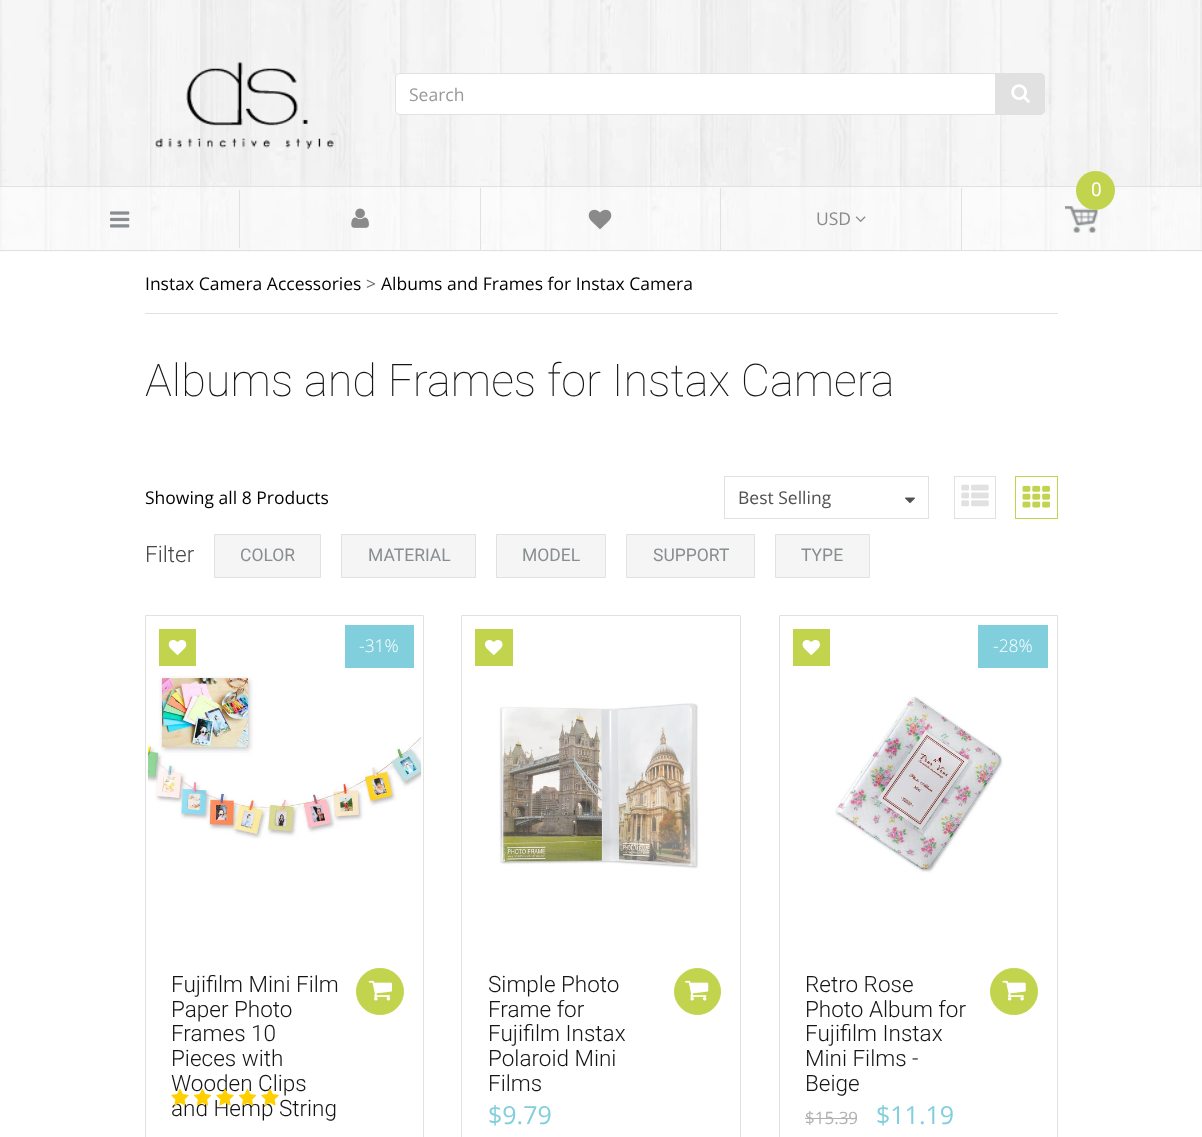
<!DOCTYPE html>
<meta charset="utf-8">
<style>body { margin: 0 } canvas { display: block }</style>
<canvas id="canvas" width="1202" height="1137"></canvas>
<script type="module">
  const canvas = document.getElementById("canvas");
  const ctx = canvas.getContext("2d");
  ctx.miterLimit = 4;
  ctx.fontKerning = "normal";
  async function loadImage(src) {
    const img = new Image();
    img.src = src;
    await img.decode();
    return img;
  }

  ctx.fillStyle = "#ffffff";
  ctx.fillRect(0, 0, 1202, 1137);
  ctx.drawImage(await loadImage("img1.png"), 0, 0, 1202, 252);
  ctx.fillStyle = "#e1e1e1";
  ctx.fillRect(0, 250, 1202, 1);
  ctx.drawImage(await loadImage("img2.png"), 155, 62, 183, 87);
  ctx.fillStyle = "#ffffff";
  ctx.beginPath();
  ctx.roundRect(395.5, 73.5, 649, 41, 4.5);
  ctx.fill();
  ctx.strokeStyle = "#e1e1e1";
  ctx.stroke();
  ctx.font = "17.5px Open Sans";
  ctx.fillStyle = "#999999";
  ctx.fillText("Search", 409, 101);
  ctx.fillStyle = "#e1e1e1";
  ctx.beginPath();
  ctx.roundRect(995, 73, 50, 42, [0, 5, 5, 0]);
  ctx.fill();
  ctx.drawImage(await loadImage("img3.png"), 1011, 84, 19, 19);
  ctx.fillStyle = "rgba(255, 255, 255, 0.5)";
  ctx.fillRect(963, 187, 239, 63);
  ctx.drawImage(await loadImage("img4.png"), 1065, 206, 33, 27);
  ctx.fillStyle = "#e1e1e1";
  ctx.fillRect(0, 186, 1202, 1);
  ctx.fillStyle = "#c2d44e";
  ctx.beginPath();
  ctx.arc(1095.5, 190.5, 19.5, 0, Math.PI * 2);
  ctx.fill();
  ctx.font = "19px Roboto";
  ctx.fillStyle = "#ffffff";
  ctx.fillText("0", 1091, 196);
  ctx.fillStyle = "rgba(255, 255, 255, 0.5)";
  ctx.fillRect(0, 187, 963, 63);
  ctx.fillStyle = "#e1e1e1";
  ctx.fillRect(239, 190, 1, 58);
  ctx.drawImage(await loadImage("img5.png"), 110, 211, 20, 17);
  ctx.fillRect(480, 188, 1, 62);
  ctx.drawImage(await loadImage("img6.png"), 351, 208, 18, 20);
  ctx.fillRect(720, 188, 1, 62);
  ctx.drawImage(await loadImage("img7.png"), 588, 209, 24, 20);
  ctx.fillRect(961, 188, 1, 62);
  ctx.font = "17.5px Open Sans";
  ctx.fillStyle = "#8a8a8a";
  ctx.fillText("USD", 816, 225);
  ctx.drawImage(await loadImage("img8.png"), 855, 216, 11, 6);
  ctx.fillStyle = "#000000";
  ctx.fillText("Instax Camera Accessories", 145, 290);
  ctx.fillStyle = "#6a6a6a";
  ctx.fillText(">", 366, 290);
  ctx.fillStyle = "#000000";
  ctx.fillText("Albums and Frames for Instax Camera", 381, 290);
  ctx.fillStyle = "#e1e1e1";
  ctx.fillRect(145, 313, 913, 1);
  ctx.font = "100 45px Roboto";
  ctx.fillStyle = "#151515";
  ctx.fillText("Albums and Frames for Instax Camera", 145, 396);
  ctx.font = "17.5px Open Sans";
  ctx.fillStyle = "#000000";
  ctx.fillText("Showing all 8 Products", 145, 504);
  ctx.strokeRect(724.5, 476.5, 204, 42);
  ctx.fillStyle = "#505050";
  ctx.fillText("Best Selling", 738, 504);
  ctx.drawImage(await loadImage("img9.png"), 905, 497, 10, 6);
  ctx.strokeRect(954.5, 476.5, 41, 42);
  ctx.drawImage(await loadImage("img10.png"), 961, 484, 28, 23);
  ctx.strokeStyle = "#c2d44e";
  ctx.strokeRect(1015.5, 476.5, 42, 42);
  ctx.drawImage(await loadImage("img11.png"), 1022, 485, 28, 23);
  ctx.font = "300 22.5px Roboto";
  ctx.fillStyle = "#484747";
  ctx.fillText("Filter", 145, 562);
  ctx.fillStyle = "#f5f5f5";
  ctx.beginPath();
  ctx.rect(214.5, 534.5, 106, 43);
  ctx.fill();
  ctx.strokeStyle = "#e1e1e1";
  ctx.stroke();
  ctx.font = "17.5px Roboto";
  ctx.fillStyle = "#898e91";
  ctx.fillText("COLOR", 240, 561);
  ctx.fillStyle = "#f5f5f5";
  ctx.beginPath();
  ctx.rect(341.5, 534.5, 134, 43);
  ctx.fill();
  ctx.stroke();
  ctx.fillStyle = "#898e91";
  ctx.fillText("MATERIAL", 368, 561);
  ctx.fillStyle = "#f5f5f5";
  ctx.beginPath();
  ctx.rect(496.5, 534.5, 109, 43);
  ctx.fill();
  ctx.stroke();
  ctx.fillStyle = "#898e91";
  ctx.fillText("MODEL", 522, 561);
  ctx.fillStyle = "#f5f5f5";
  ctx.beginPath();
  ctx.rect(626.5, 534.5, 128, 43);
  ctx.fill();
  ctx.stroke();
  ctx.fillStyle = "#898e91";
  ctx.fillText("SUPPORT", 653, 561);
  ctx.fillStyle = "#f5f5f5";
  ctx.beginPath();
  ctx.rect(775.5, 534.5, 94, 43);
  ctx.fill();
  ctx.stroke();
  ctx.fillStyle = "#898e91";
  ctx.fillText("TYPE", 801, 561);
  ctx.beginPath();
  ctx.roundRect(145.5, 615.5, 278, 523, 0.5);
  ctx.stroke();
  ctx.fillStyle = "#c2d44e";
  ctx.fillRect(159, 629, 37, 37);
  ctx.drawImage(await loadImage("img12.png"), 168, 640, 19, 15);
  ctx.fillStyle = "#81cfdc";
  ctx.fillRect(345, 625, 69, 43);
  ctx.font = "300 17.5px Open Sans";
  ctx.fillStyle = "#ffffff";
  ctx.fillText("-31%", 359, 652);
  ctx.drawImage(await loadImage("img13.png"), 147, 676, 275, 163);
  ctx.font = "300 22.5px Roboto";
  ctx.fillStyle = "#151515";
  ctx.fillText("Fujifilm Mini Film", 171, 992);
  ctx.fillText("Paper Photo", 171, 1017);
  ctx.fillText("Frames 10", 171, 1041);
  ctx.fillText("Pieces with", 171, 1066);
  ctx.fillText("Wooden Clips", 171, 1091);
  ctx.fillText("and Hemp String", 171, 1116);
  ctx.fillStyle = "#c2d44e";
  ctx.beginPath();
  ctx.roundRect(356.5, 968.5, 47, 46, 23);
  ctx.fill();
  ctx.strokeStyle = "#c2d44e";
  ctx.stroke();
  ctx.drawImage(await loadImage("img14.png"), 368, 980, 24, 21);
  ctx.drawImage(await loadImage("img15.png"), 171, 1088, 18, 18);
  ctx.drawImage(await loadImage("img16.png"), 193, 1088, 19, 18);
  ctx.drawImage(await loadImage("img17.png"), 216, 1088, 18, 18);
  ctx.drawImage(await loadImage("img18.png"), 238, 1088, 19, 18);
  ctx.drawImage(await loadImage("img19.png"), 261, 1088, 18, 18);
  ctx.beginPath();
  ctx.roundRect(461.5, 615.5, 279, 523, 0.5);
  ctx.strokeStyle = "#e1e1e1";
  ctx.stroke();
  ctx.fillRect(475, 629, 38, 37);
  ctx.drawImage(await loadImage("img20.png"), 485, 640, 18, 15);
  ctx.drawImage(await loadImage("img21.png"), 499, 703, 200, 166);
  ctx.fillStyle = "#151515";
  ctx.fillText("Simple Photo", 488, 992);
  ctx.fillText("Frame for", 488, 1017);
  ctx.fillText("Fujifilm Instax", 488, 1041);
  ctx.fillText("Polaroid Mini", 488, 1066);
  ctx.fillText("Films", 488, 1091);
  ctx.fillStyle = "#c2d44e";
  ctx.beginPath();
  ctx.arc(697.5, 991.5, 23, 0, Math.PI * 2);
  ctx.fill();
  ctx.strokeStyle = "#c2d44e";
  ctx.stroke();
  ctx.drawImage(await loadImage("img22.png"), 685, 980, 24, 21);
  ctx.font = "25px Open Sans";
  ctx.fillStyle = "#81cfdc";
  ctx.fillText("$9.79", 488, 1124);
  ctx.beginPath();
  ctx.roundRect(779.5, 615.5, 278, 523, 0.5);
  ctx.strokeStyle = "#e1e1e1";
  ctx.stroke();
  ctx.fillStyle = "#c2d44e";
  ctx.fillRect(793, 629, 37, 37);
  ctx.drawImage(await loadImage("img23.png"), 802, 640, 18, 15);
  ctx.fillStyle = "#81cfdc";
  ctx.fillRect(978, 625, 70, 43);
  ctx.font = "300 17.5px Open Sans";
  ctx.fillStyle = "#ffffff";
  ctx.fillText("-28%", 993, 652);
  ctx.drawImage(await loadImage("img24.png"), 835, 696, 168, 177);
  ctx.font = "300 22.5px Roboto";
  ctx.fillStyle = "#151515";
  ctx.fillText("Retro Rose", 805, 992);
  ctx.fillText("Photo Album for", 805, 1017);
  ctx.fillText("Fujifilm Instax", 805, 1041);
  ctx.fillText("Mini Films -", 805, 1066);
  ctx.fillText("Beige", 805, 1091);
  ctx.fillStyle = "#c2d44e";
  ctx.beginPath();
  ctx.roundRect(990.5, 968.5, 47, 46, 23);
  ctx.fill();
  ctx.strokeStyle = "#c2d44e";
  ctx.stroke();
  ctx.drawImage(await loadImage("img25.png"), 1002, 980, 24, 21);
  ctx.font = "17px Open Sans";
  ctx.fillStyle = "#b1b1b1";
  ctx.fillText("$15.39", 805, 1124);
  ctx.fillRect(805, 1118, 51, 1);
  ctx.font = "25px Open Sans";
  ctx.fillStyle = "#81cfdc";
  ctx.fillText("$11.19", 876, 1124);
</script>
